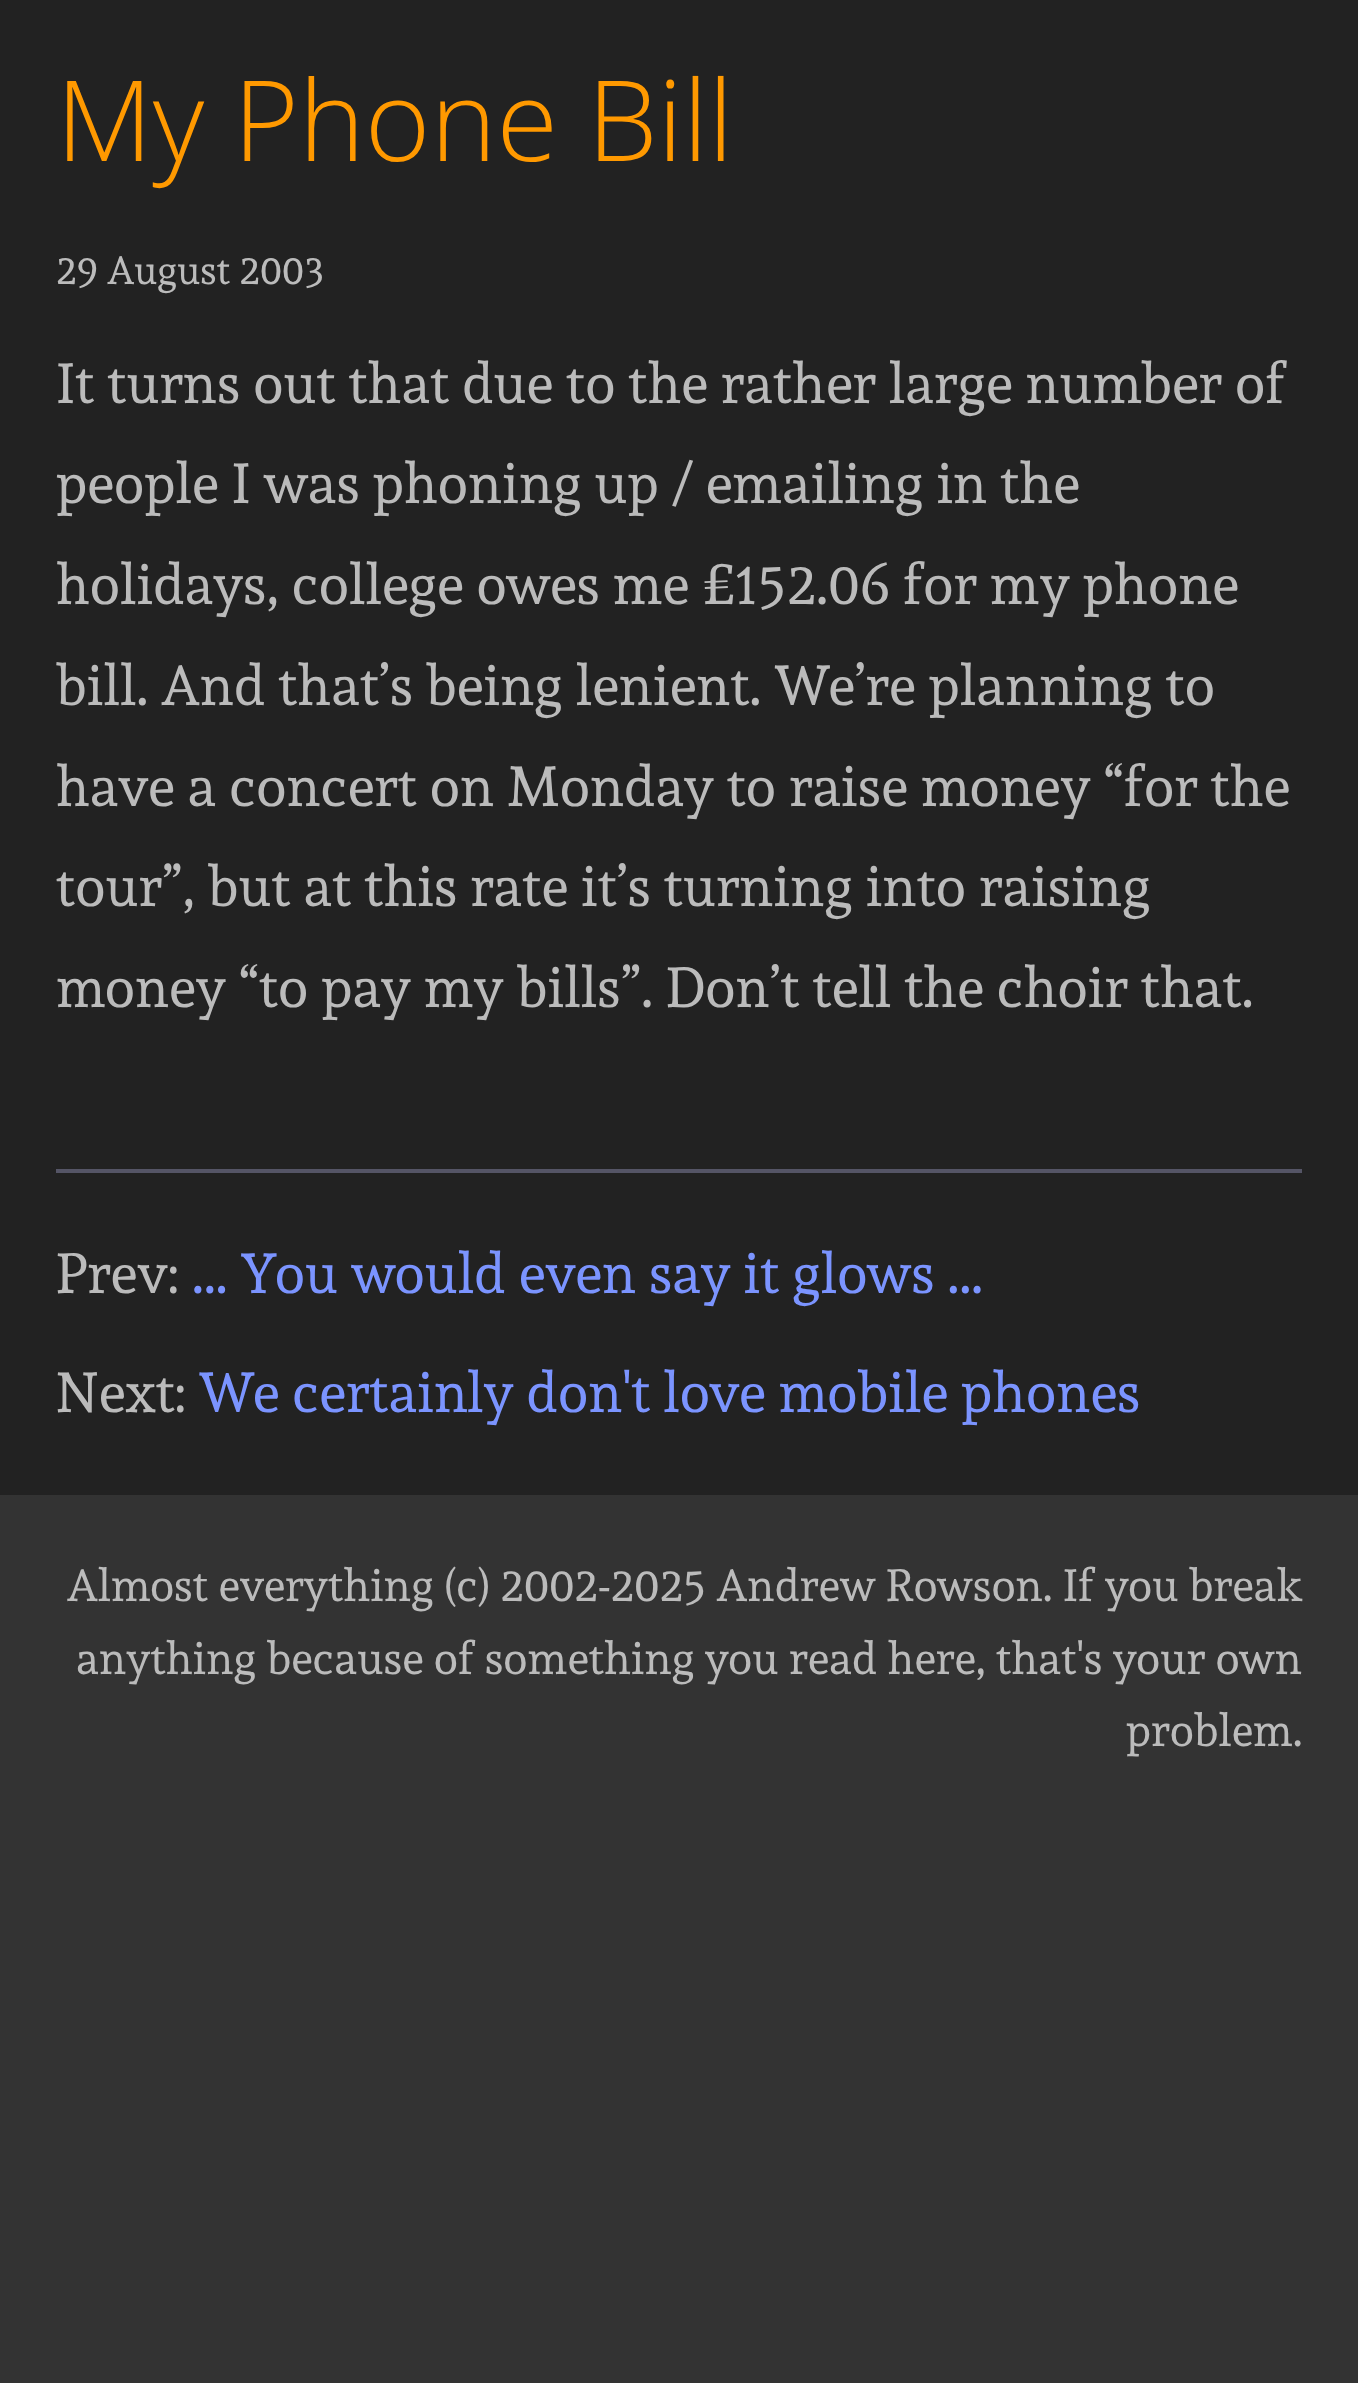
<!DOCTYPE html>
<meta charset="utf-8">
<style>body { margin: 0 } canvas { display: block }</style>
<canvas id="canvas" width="1358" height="2383"></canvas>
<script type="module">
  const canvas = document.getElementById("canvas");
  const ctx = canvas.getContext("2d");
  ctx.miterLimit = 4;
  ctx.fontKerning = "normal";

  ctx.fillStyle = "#333333";
  ctx.fillRect(0, 0, 1358, 2383);
  ctx.fillStyle = "#222222";
  ctx.fillRect(0, 0, 1358, 1495);
  ctx.font = "300 112px Open Sans";
  ctx.fillStyle = "#ff9900";
  ctx.fillText("My Phone Bill", 56, 161);
  ctx.font = "39.25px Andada";
  ctx.fillStyle = "#bbbbbb";
  ctx.fillText("29 August 2003", 56, 284);
  ctx.fillStyle = "#555566";
  ctx.fillRect(56, 1169, 1246, 4);
  ctx.font = "56px Andada";
  ctx.fillStyle = "#bbbbbb";
  ctx.fillText("It turns out that due to the rather large number of", 56, 403);
  ctx.fillText("people I was phoning up / emailing in the", 56, 503);
  ctx.fillText("holidays, college owes me £152.06 for my phone", 56, 604);
  ctx.fillText("bill. And that’s being lenient. We’re planning to", 56, 705);
  ctx.fillText("have a concert on Monday to raise money “for the", 56, 806);
  ctx.fillText("tour”, but at this rate it’s turning into raising", 56, 906);
  ctx.fillText("money “to pay my bills”. Don’t tell the choir that.", 56, 1007);
  ctx.fillText("Prev:", 56, 1293);
  ctx.fillStyle = "#7b94ff";
  ctx.fillText("... You would even say it glows ...", 192, 1293);
  ctx.fillStyle = "#bbbbbb";
  ctx.fillText("Next:", 56, 1412);
  ctx.fillStyle = "#7b94ff";
  ctx.fillText("We certainly don't love mobile phones", 199, 1412);
  ctx.font = "44.8px Andada";
  ctx.fillStyle = "#bbbbbb";
  ctx.fillText("Almost everything (c) 2002-2025 Andrew Rowson. If you break", 67, 1601);
  ctx.fillText("anything because of something you read here, that's your own", 76, 1674);
  ctx.fillText("problem.", 1126, 1746);
</script>
